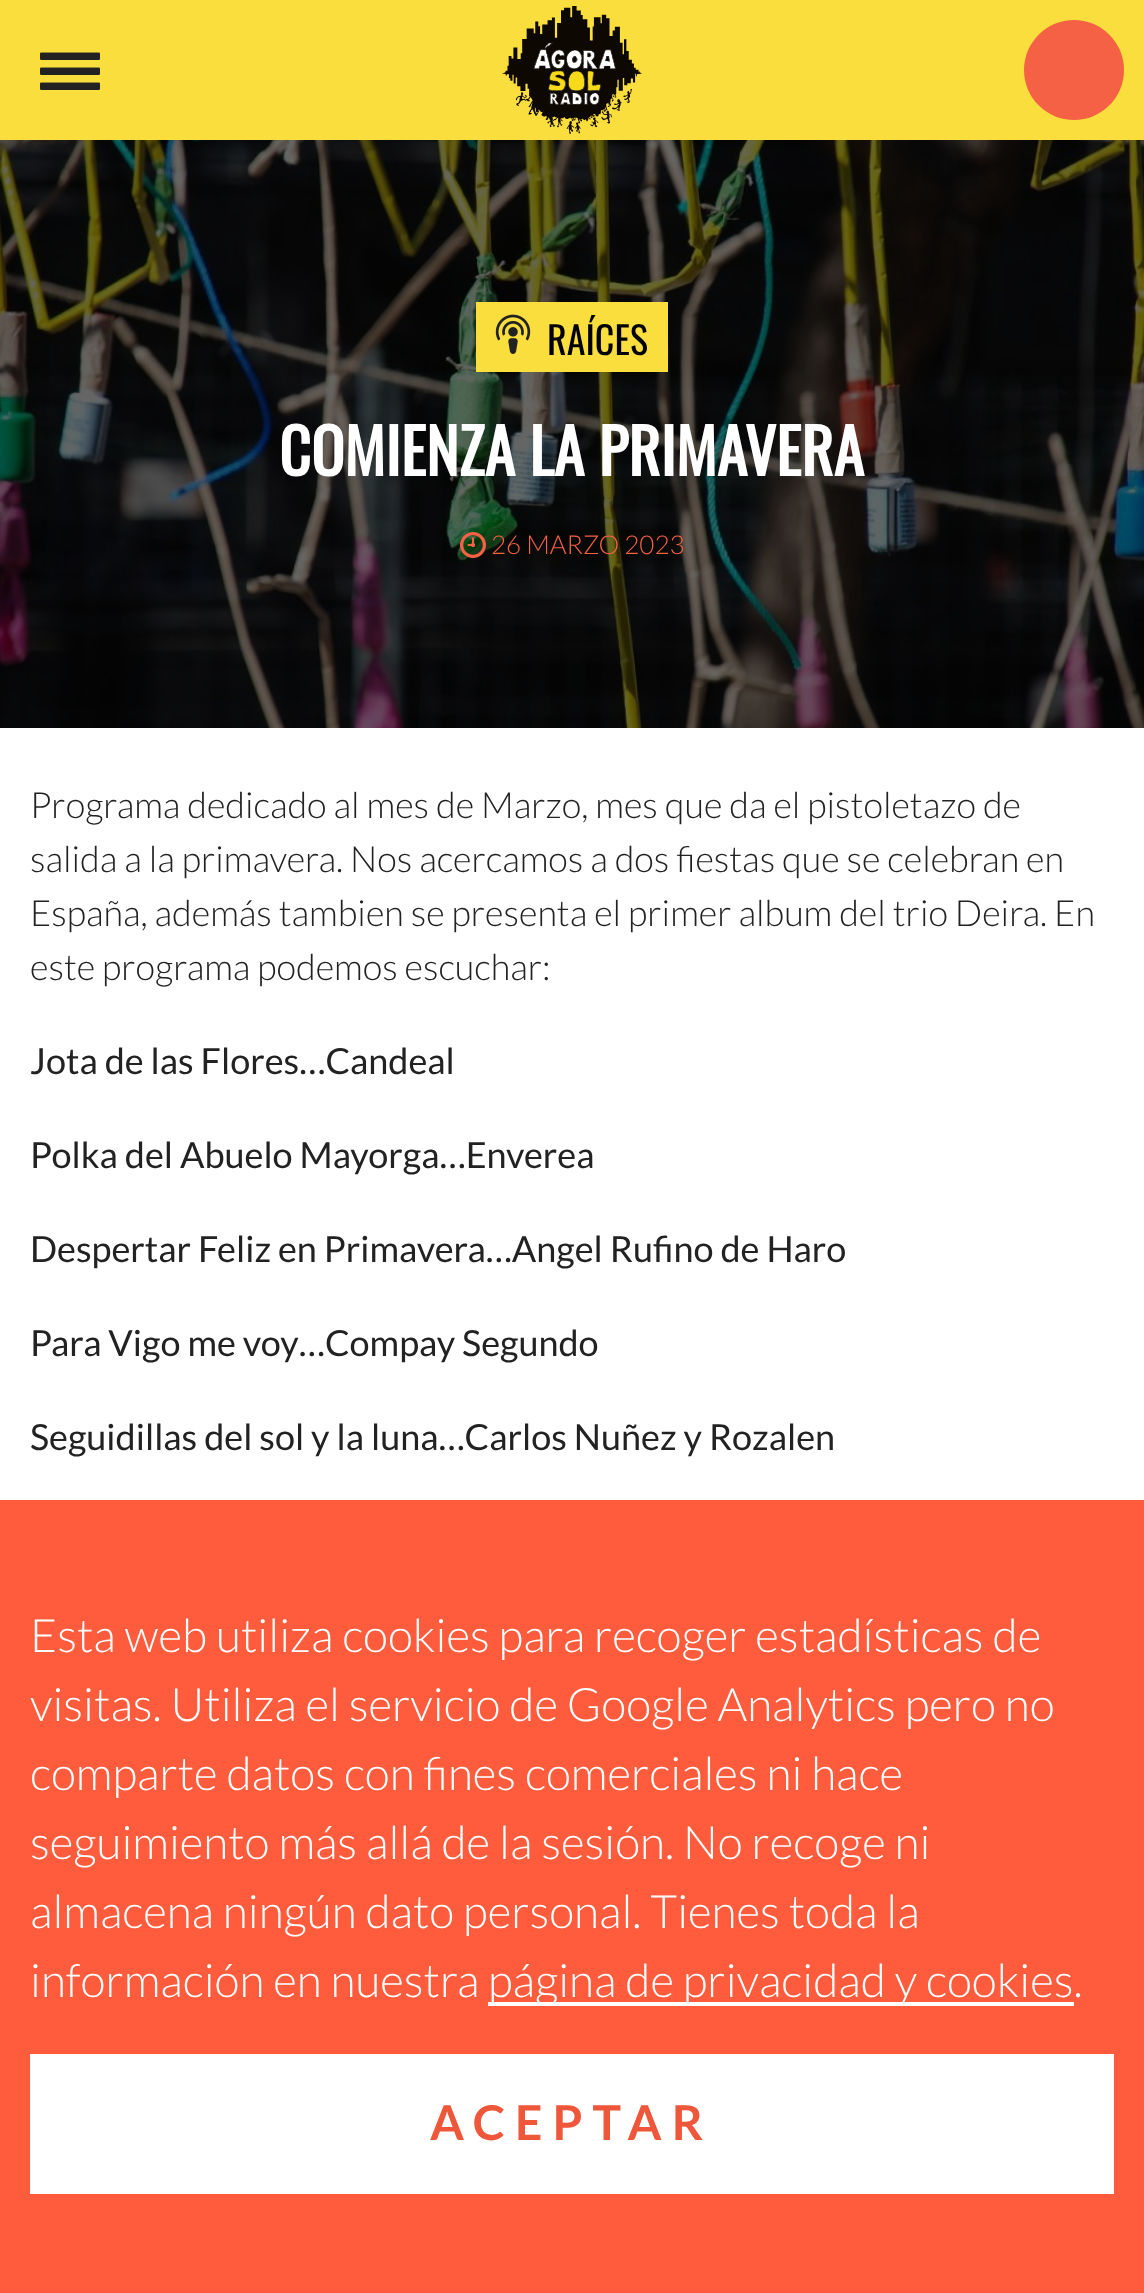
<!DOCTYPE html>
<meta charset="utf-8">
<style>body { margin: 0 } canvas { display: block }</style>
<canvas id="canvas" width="1144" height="2293"></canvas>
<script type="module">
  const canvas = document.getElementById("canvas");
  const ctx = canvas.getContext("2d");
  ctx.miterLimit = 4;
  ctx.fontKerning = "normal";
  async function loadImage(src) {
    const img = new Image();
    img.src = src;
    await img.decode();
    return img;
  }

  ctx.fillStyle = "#ffffff";
  ctx.fillRect(0, 0, 1144, 2293);
  ctx.fillStyle = "#fade3e";
  ctx.fillRect(0, 0, 1144, 140);
  ctx.drawImage(await loadImage("img1.png"), 40, 52, 60, 38);
  ctx.drawImage(await loadImage("img2.png"), 502, 6, 140, 128);
  ctx.fillStyle = "#f46144";
  ctx.beginPath();
  ctx.arc(1074, 70, 50, 0, Math.PI * 2);
  ctx.fill();
  ctx.drawImage(await loadImage("img3.png"), 0, 140, 1144, 588);
  ctx.fillStyle = "#fade3e";
  ctx.fillRect(476, 302, 192, 70);
  ctx.drawImage(await loadImage("img4.png"), 495, 314, 36, 40);
  ctx.font = "38px Oswald";
  ctx.fillStyle = "#000000";
  ctx.fillText("RAÍCES", 547, 355);
  ctx.font = "bold 62px Oswald";
  ctx.fillStyle = "#ffffff";
  ctx.fillText("COMIENZA LA PRIMAVERA", 279, 476);
  ctx.drawImage(await loadImage("img5.png"), 460, 532, 26, 26);
  ctx.font = "300 26px Lato";
  ctx.fillStyle = "#f46144";
  ctx.fillText("26 MARZO 2023", 491, 554);
  ctx.font = "300 36px Lato";
  ctx.fillStyle = "#222222";
  ctx.fillText("Programa dedicado al mes de Marzo, mes que da el pistoletazo de", 30, 818);
  ctx.fillText("salida a la primavera. Nos acercamos a dos fiestas que se celebran en", 30, 872);
  ctx.fillText("España, además tambien se presenta el primer album del trio Deira. En", 30, 926);
  ctx.fillText("este programa podemos escuchar:", 30, 980);
  ctx.font = "36px Lato";
  ctx.fillText("Jota de las Flores…Candeal", 30, 1074);
  ctx.fillText("Polka del Abuelo Mayorga…Enverea", 30, 1168);
  ctx.fillText("Despertar Feliz en Primavera…Angel Rufino de Haro", 30, 1262);
  ctx.fillText("Para Vigo me voy…Compay Segundo", 30, 1356);
  ctx.fillText("Seguidillas del sol y la luna…Carlos Nuñez y Rozalen", 30, 1450);
  ctx.fillStyle = "#ff5c3d";
  ctx.fillRect(0, 1500, 1144, 793);
  ctx.font = "300 46px Lato";
  ctx.fillStyle = "#ffffff";
  ctx.fillText("Esta web utiliza cookies para recoger estadísticas de", 30, 1652);
  ctx.fillText("visitas. Utiliza el servicio de Google Analytics pero no", 30, 1721);
  ctx.fillText("comparte datos con fines comerciales ni hace", 30, 1790);
  ctx.fillText("seguimiento más allá de la sesión. No recoge ni", 30, 1859);
  ctx.fillText("almacena ningún dato personal. Tienes toda la", 30, 1928);
  ctx.fillText("información en nuestra", 30, 1997);
  ctx.fillRect(488, 2002, 586, 4);
  ctx.fillText("página de privacidad y cookies.", 488, 1997);
  ctx.fillRect(30, 2054, 1084, 140);
  ctx.letterSpacing = "10px";
  ctx.font = "bold 48px Lato";
  ctx.fillStyle = "#ee573a";
  ctx.fillText("ACEPTAR", 430, 2140);
</script>
